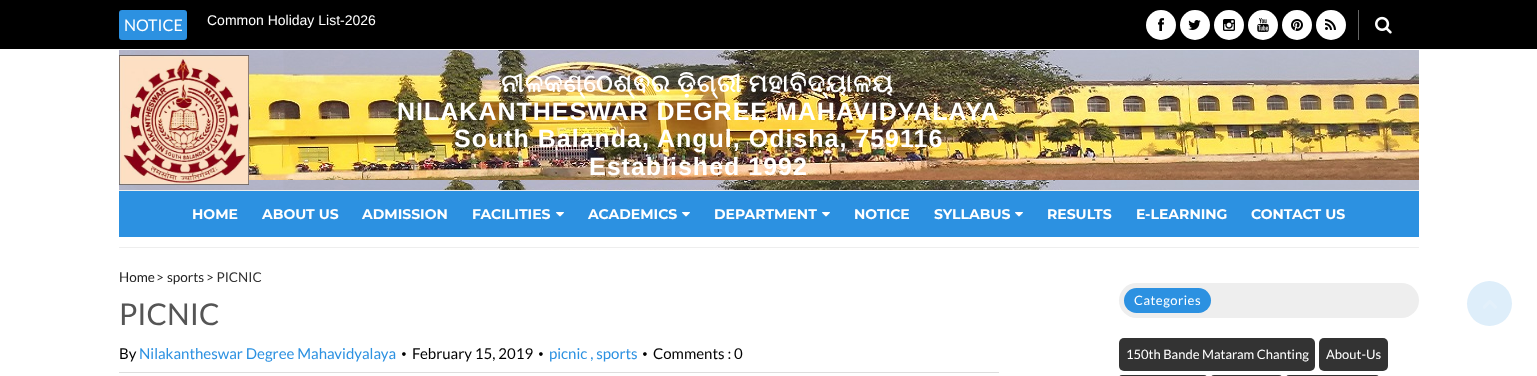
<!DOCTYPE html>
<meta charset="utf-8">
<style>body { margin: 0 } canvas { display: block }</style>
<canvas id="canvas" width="1537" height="376"></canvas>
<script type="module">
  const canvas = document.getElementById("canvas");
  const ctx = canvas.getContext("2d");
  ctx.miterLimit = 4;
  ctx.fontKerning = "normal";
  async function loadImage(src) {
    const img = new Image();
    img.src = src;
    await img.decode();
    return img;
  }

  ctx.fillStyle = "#ffffff";
  ctx.fillRect(0, 0, 1537, 376);
  ctx.fillStyle = "#000000";
  ctx.fillRect(0, 0, 1537, 49);
  ctx.fillStyle = "#2c91e1";
  ctx.beginPath();
  ctx.roundRect(119, 10, 68, 30, 3);
  ctx.fill();
  ctx.font = "16px Lato";
  ctx.fillStyle = "#ffffff";
  ctx.fillText("NOTICE", 124, 31);
  ctx.font = "14px Liberation Sans";
  ctx.fillText("Common Holiday List-2026", 207, 25);
  ctx.fillStyle = "#666666";
  ctx.fillRect(1358, 10, 1, 30);
  ctx.fillStyle = "#ffffff";
  ctx.beginPath();
  ctx.arc(1161, 25, 15, 0, Math.PI * 2);
  ctx.fill();
  ctx.drawImage(await loadImage("img1.png"), 1158, 18, 6, 13);
  ctx.beginPath();
  ctx.arc(1195, 25, 15, 0, Math.PI * 2);
  ctx.fill();
  ctx.drawImage(await loadImage("img2.png"), 1188, 20, 13, 10);
  ctx.beginPath();
  ctx.arc(1229, 25, 15, 0, Math.PI * 2);
  ctx.fill();
  ctx.drawImage(await loadImage("img3.png"), 1223, 19, 12, 12);
  ctx.beginPath();
  ctx.arc(1263, 25, 15, 0, Math.PI * 2);
  ctx.fill();
  ctx.drawImage(await loadImage("img4.png"), 1257, 18, 12, 14);
  ctx.beginPath();
  ctx.arc(1297, 25, 15, 0, Math.PI * 2);
  ctx.fill();
  ctx.drawImage(await loadImage("img5.png"), 1291, 19, 12, 12);
  ctx.beginPath();
  ctx.arc(1331, 25, 15, 0, Math.PI * 2);
  ctx.fill();
  ctx.drawImage(await loadImage("img6.png"), 1325, 19, 11, 11);
  ctx.drawImage(await loadImage("img7.png"), 1375, 16, 17, 18);
  ctx.drawImage(await loadImage("img8.png"), 119, 50, 1300, 140);
  ctx.drawImage(await loadImage("img9.png"), 119, 55, 130, 130);
  ctx.letterSpacing = "1px";
  ctx.wordSpacing = "-1px";
  ctx.font = "bold 25px FreeSerif";
  ctx.fillText("ନୀଳକଣ୍ଠେଶ୍ଵର ଡ଼ିଗ୍ରୀ ମହାବିଦ୍ୟାଳୟ", 501, 92);
  ctx.wordSpacing = "0px";
  ctx.font = "bold 25px Liberation Sans";
  ctx.fillText("NILAKANTHESWAR DEGREE MAHAVIDYALAYA", 397, 120);
  ctx.fillText("South Balanda, Angul, Odisha, 759116", 454, 147);
  ctx.fillText("Established 1992", 589, 175);
  ctx.fillStyle = "#eeeeee";
  ctx.fillRect(119, 190, 1300, 1);
  ctx.fillRect(119, 247, 1300, 1);
  ctx.fillStyle = "#2c91e1";
  ctx.fillRect(119, 191, 1300, 46);
  ctx.letterSpacing = "0px";
  ctx.font = "bold 14px Montserrat";
  ctx.fillStyle = "#ffffff";
  ctx.fillText("HOME", 192, 219);
  ctx.fillText("ABOUT US", 262, 219);
  ctx.fillText("ADMISSION", 362, 219);
  ctx.fillText("FACILITIES", 472, 219);
  ctx.drawImage(await loadImage("img10.png"), 556, 212, 8, 5);
  ctx.fillText("ACADEMICS", 588, 219);
  ctx.drawImage(await loadImage("img10.png"), 682, 212, 8, 5);
  ctx.fillText("DEPARTMENT", 714, 219);
  ctx.drawImage(await loadImage("img10.png"), 822, 212, 8, 5);
  ctx.fillText("NOTICE", 854, 219);
  ctx.fillText("SYLLABUS", 934, 219);
  ctx.drawImage(await loadImage("img10.png"), 1015, 212, 8, 5);
  ctx.fillText("RESULTS", 1047, 219);
  ctx.fillText("E-LEARNING", 1136, 219);
  ctx.fillText("CONTACT US", 1251, 219);
  ctx.font = "13.5px Lato";
  ctx.fillStyle = "#222222";
  ctx.fillText("Home", 119, 282);
  ctx.fillStyle = "#333333";
  ctx.fillText(">", 156, 282);
  ctx.fillStyle = "#222222";
  ctx.fillText("sports", 167, 282);
  ctx.fillStyle = "#333333";
  ctx.fillText("> PICNIC", 206, 282);
  ctx.font = "30px Lato";
  ctx.fillStyle = "#555555";
  ctx.fillText("PICNIC", 119, 325);
  ctx.fillStyle = "#dddddd";
  ctx.fillRect(119, 372, 880, 1);
  ctx.font = "15px Lato";
  ctx.fillStyle = "#000000";
  ctx.fillText("By", 119, 359);
  ctx.fillStyle = "#2c91e1";
  ctx.fillText("Nilakantheswar Degree Mahavidyalaya", 139, 359);
  ctx.font = "10px Lato";
  ctx.fillStyle = "#000000";
  ctx.fillText("•", 401, 357);
  ctx.font = "15px Lato";
  ctx.fillText("February 15, 2019", 412, 359);
  ctx.font = "10px Lato";
  ctx.fillText("•", 538, 357);
  ctx.font = "15px Lato";
  ctx.fillStyle = "#2c91e1";
  ctx.fillText("picnic , sports", 549, 359);
  ctx.font = "10px Lato";
  ctx.fillStyle = "#000000";
  ctx.fillText("•", 642, 357);
  ctx.font = "15px Lato";
  ctx.fillText("Comments : 0", 653, 359);
  ctx.fillStyle = "#eeeeee";
  ctx.beginPath();
  ctx.roundRect(1119, 283, 300, 35, 17.5);
  ctx.fill();
  ctx.fillStyle = "#2c91e1";
  ctx.beginPath();
  ctx.roundRect(1124, 288, 87, 25, 12.5);
  ctx.fill();
  ctx.letterSpacing = "0.5px";
  ctx.font = "13px Lato";
  ctx.fillStyle = "#ffffff";
  ctx.fillText("Categories", 1134, 305);
  ctx.fillStyle = "#333333";
  ctx.beginPath();
  ctx.roundRect(1119, 338, 196, 33, 5);
  ctx.fill();
  ctx.letterSpacing = "0px";
  ctx.fillStyle = "#ffffff";
  ctx.fillText("150th Bande Mataram Chanting", 1126, 359);
  ctx.fillStyle = "#333333";
  ctx.beginPath();
  ctx.roundRect(1319, 338, 69, 33, 5);
  ctx.fill();
  ctx.fillStyle = "#ffffff";
  ctx.fillText("About-Us", 1326, 359);
  ctx.fillStyle = "#333333";
  ctx.beginPath();
  ctx.roundRect(1119, 375, 88, 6, 5);
  ctx.fill();
  ctx.beginPath();
  ctx.roundRect(1211, 375, 71, 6, 5);
  ctx.fill();
  ctx.beginPath();
  ctx.roundRect(1286, 375, 93, 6, 5);
  ctx.fill();
  ctx.fillStyle = "#deeefa";
  ctx.beginPath();
  ctx.arc(1489.5, 303.5, 22.5, 0, Math.PI * 2);
  ctx.fill();
  ctx.drawImage(await loadImage("img11.png"), 1483, 300, 14, 9);
</script>
